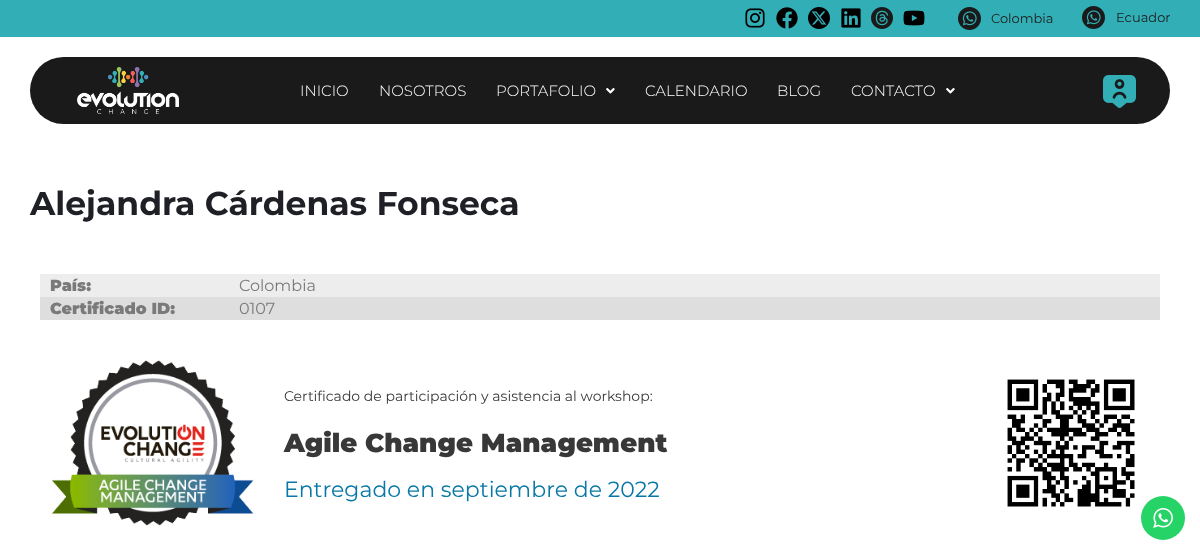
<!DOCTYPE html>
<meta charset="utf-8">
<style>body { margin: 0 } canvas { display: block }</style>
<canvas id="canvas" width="1200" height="555"></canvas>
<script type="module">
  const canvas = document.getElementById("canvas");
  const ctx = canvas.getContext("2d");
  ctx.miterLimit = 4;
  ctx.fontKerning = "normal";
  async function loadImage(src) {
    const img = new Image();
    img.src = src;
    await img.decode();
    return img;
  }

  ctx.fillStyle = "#ffffff";
  ctx.fillRect(0, 0, 1200, 555);
  ctx.fillStyle = "#32afb6";
  ctx.fillRect(0, 0, 1200, 37);
  ctx.drawImage(await loadImage("img1.png"), 745, 8, 20, 20);
  ctx.drawImage(await loadImage("img2.png"), 776, 7, 22, 22);
  ctx.drawImage(await loadImage("img3.png"), 808, 7, 22, 22);
  ctx.drawImage(await loadImage("img4.png"), 841, 8, 20, 20);
  ctx.drawImage(await loadImage("img5.png"), 871, 7, 22, 22);
  ctx.drawImage(await loadImage("img6.png"), 903, 10, 22, 16);
  ctx.drawImage(await loadImage("img7.png"), 958, 7, 23, 23);
  ctx.font = "13px Montserrat";
  ctx.fillStyle = "#1d1d1d";
  ctx.fillText("Colombia", 991, 23);
  ctx.drawImage(await loadImage("img7.png"), 1082, 6, 23, 23);
  ctx.fillText("Ecuador", 1116, 22);
  ctx.fillStyle = "#1a1a1a";
  ctx.beginPath();
  ctx.roundRect(30, 57, 1140, 67, 33.5);
  ctx.fill();
  ctx.drawImage(await loadImage("img8.png"), 77, 67, 102, 47);
  ctx.font = "300 15px Montserrat";
  ctx.fillStyle = "#ffffff";
  ctx.fillText("INICIO", 300, 96);
  ctx.fillText("NOSOTROS", 379, 96);
  ctx.fillText("PORTAFOLIO", 496, 96);
  ctx.drawImage(await loadImage("img9.png"), 606, 88, 9, 6);
  ctx.fillText("CALENDARIO", 645, 96);
  ctx.fillText("BLOG", 777, 96);
  ctx.fillText("CONTACTO", 851, 96);
  ctx.drawImage(await loadImage("img9.png"), 946, 88, 9, 6);
  ctx.drawImage(await loadImage("img10.png"), 1103, 75, 33, 33);
  ctx.font = "bold 33px Montserrat";
  ctx.fillStyle = "#1f2026";
  ctx.fillText("Alejandra Cárdenas Fonseca", 30, 215);
  ctx.fillStyle = "#ededed";
  ctx.fillRect(40, 274, 1120, 23);
  ctx.font = "900 16px Montserrat";
  ctx.fillStyle = "#7a7a7a";
  ctx.fillText("País:", 50, 291);
  ctx.font = "16px Montserrat";
  ctx.fillText("Colombia", 239, 291);
  ctx.fillStyle = "#dedede";
  ctx.fillRect(40, 297, 1120, 23);
  ctx.font = "900 16px Montserrat";
  ctx.fillStyle = "#7a7a7a";
  ctx.fillText("Certificado ID:", 50, 314);
  ctx.font = "16px Montserrat";
  ctx.fillText("0107", 239, 314);
  ctx.drawImage(await loadImage("img11.png"), 52, 360, 202, 166);
  ctx.font = "14px Montserrat";
  ctx.fillStyle = "#383838";
  ctx.fillText("Certificado de participación y asistencia al workshop:", 284, 401);
  ctx.font = "900 26px Montserrat";
  ctx.fillText("Agile Change Management", 284, 452);
  ctx.font = "22px Montserrat";
  ctx.fillStyle = "#0978a7";
  ctx.fillText("Entregado en septiembre de 2022", 284, 497);
  ctx.drawImage(await loadImage("img12.png"), 1007, 379, 128, 128);
  ctx.fillStyle = "#25d366";
  ctx.beginPath();
  ctx.arc(1163, 518, 22, 0, Math.PI * 2);
  ctx.fill();
  ctx.drawImage(await loadImage("img13.png"), 1153, 508, 20, 20);
</script>
